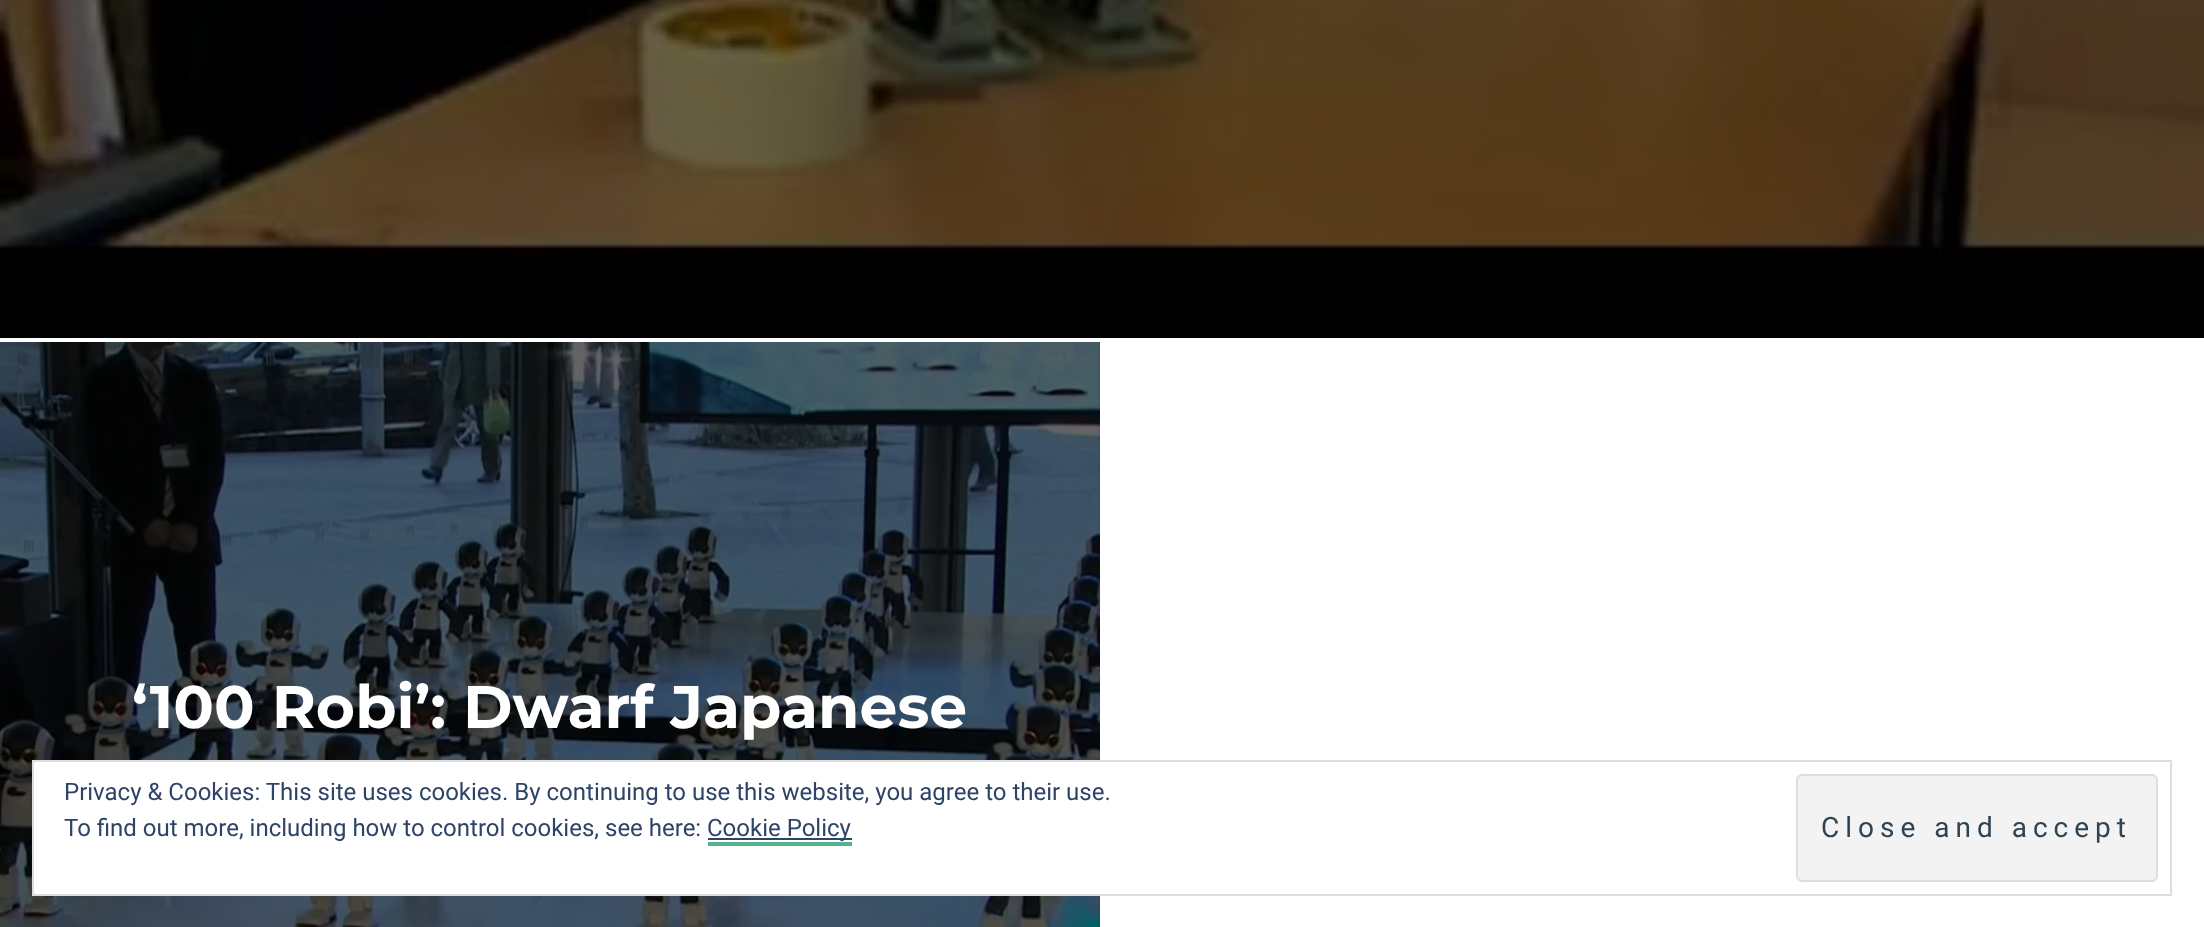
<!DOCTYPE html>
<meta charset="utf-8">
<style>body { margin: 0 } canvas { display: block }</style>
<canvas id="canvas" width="2204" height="927"></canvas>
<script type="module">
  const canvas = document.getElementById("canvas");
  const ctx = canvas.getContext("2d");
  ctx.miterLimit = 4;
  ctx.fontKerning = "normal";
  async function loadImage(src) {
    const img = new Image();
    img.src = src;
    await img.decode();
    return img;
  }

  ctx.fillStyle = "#ffffff";
  ctx.fillRect(0, 0, 2204, 927);
  ctx.fillStyle = "#000000";
  ctx.fillRect(0, 0, 2204, 338);
  ctx.drawImage(await loadImage("img1.png"), 0, 0, 2204, 259);
  ctx.fillRect(0, 342, 1100, 585);
  ctx.drawImage(await loadImage("img2.png"), 0, 342, 1100, 585);
  ctx.font = "bold 60px Montserrat";
  ctx.fillStyle = "#ffffff";
  ctx.fillText("‘100 Robi’: Dwarf Japanese", 132, 728);
  ctx.fillRect(34, 762, 1066, 132);
  ctx.strokeStyle = "#dedede";
  ctx.lineWidth = 2;
  ctx.strokeRect(33, 761, 2138, 134);
  ctx.font = "24px Roboto";
  ctx.fillStyle = "#2e4467";
  ctx.fillText("Privacy & Cookies: This site uses cookies. By continuing to use this website, you agree to their use.", 64, 800);
  ctx.fillText("To find out more, including how to control cookies, see here:", 64, 836);
  ctx.fillRect(708, 838, 144, 2);
  ctx.fillText("Cookie Policy", 707, 836);
  ctx.fillStyle = "#53b38c";
  ctx.fillRect(708, 842, 144, 4);
  ctx.fillStyle = "#f3f3f3";
  ctx.beginPath();
  ctx.roundRect(1797, 775, 360, 106, 5);
  ctx.fill();
  ctx.stroke();
  ctx.letterSpacing = "6px";
  ctx.font = "28px Roboto";
  ctx.fillStyle = "#2e4453";
  ctx.fillText("Close and accept", 1821, 837);
</script>
